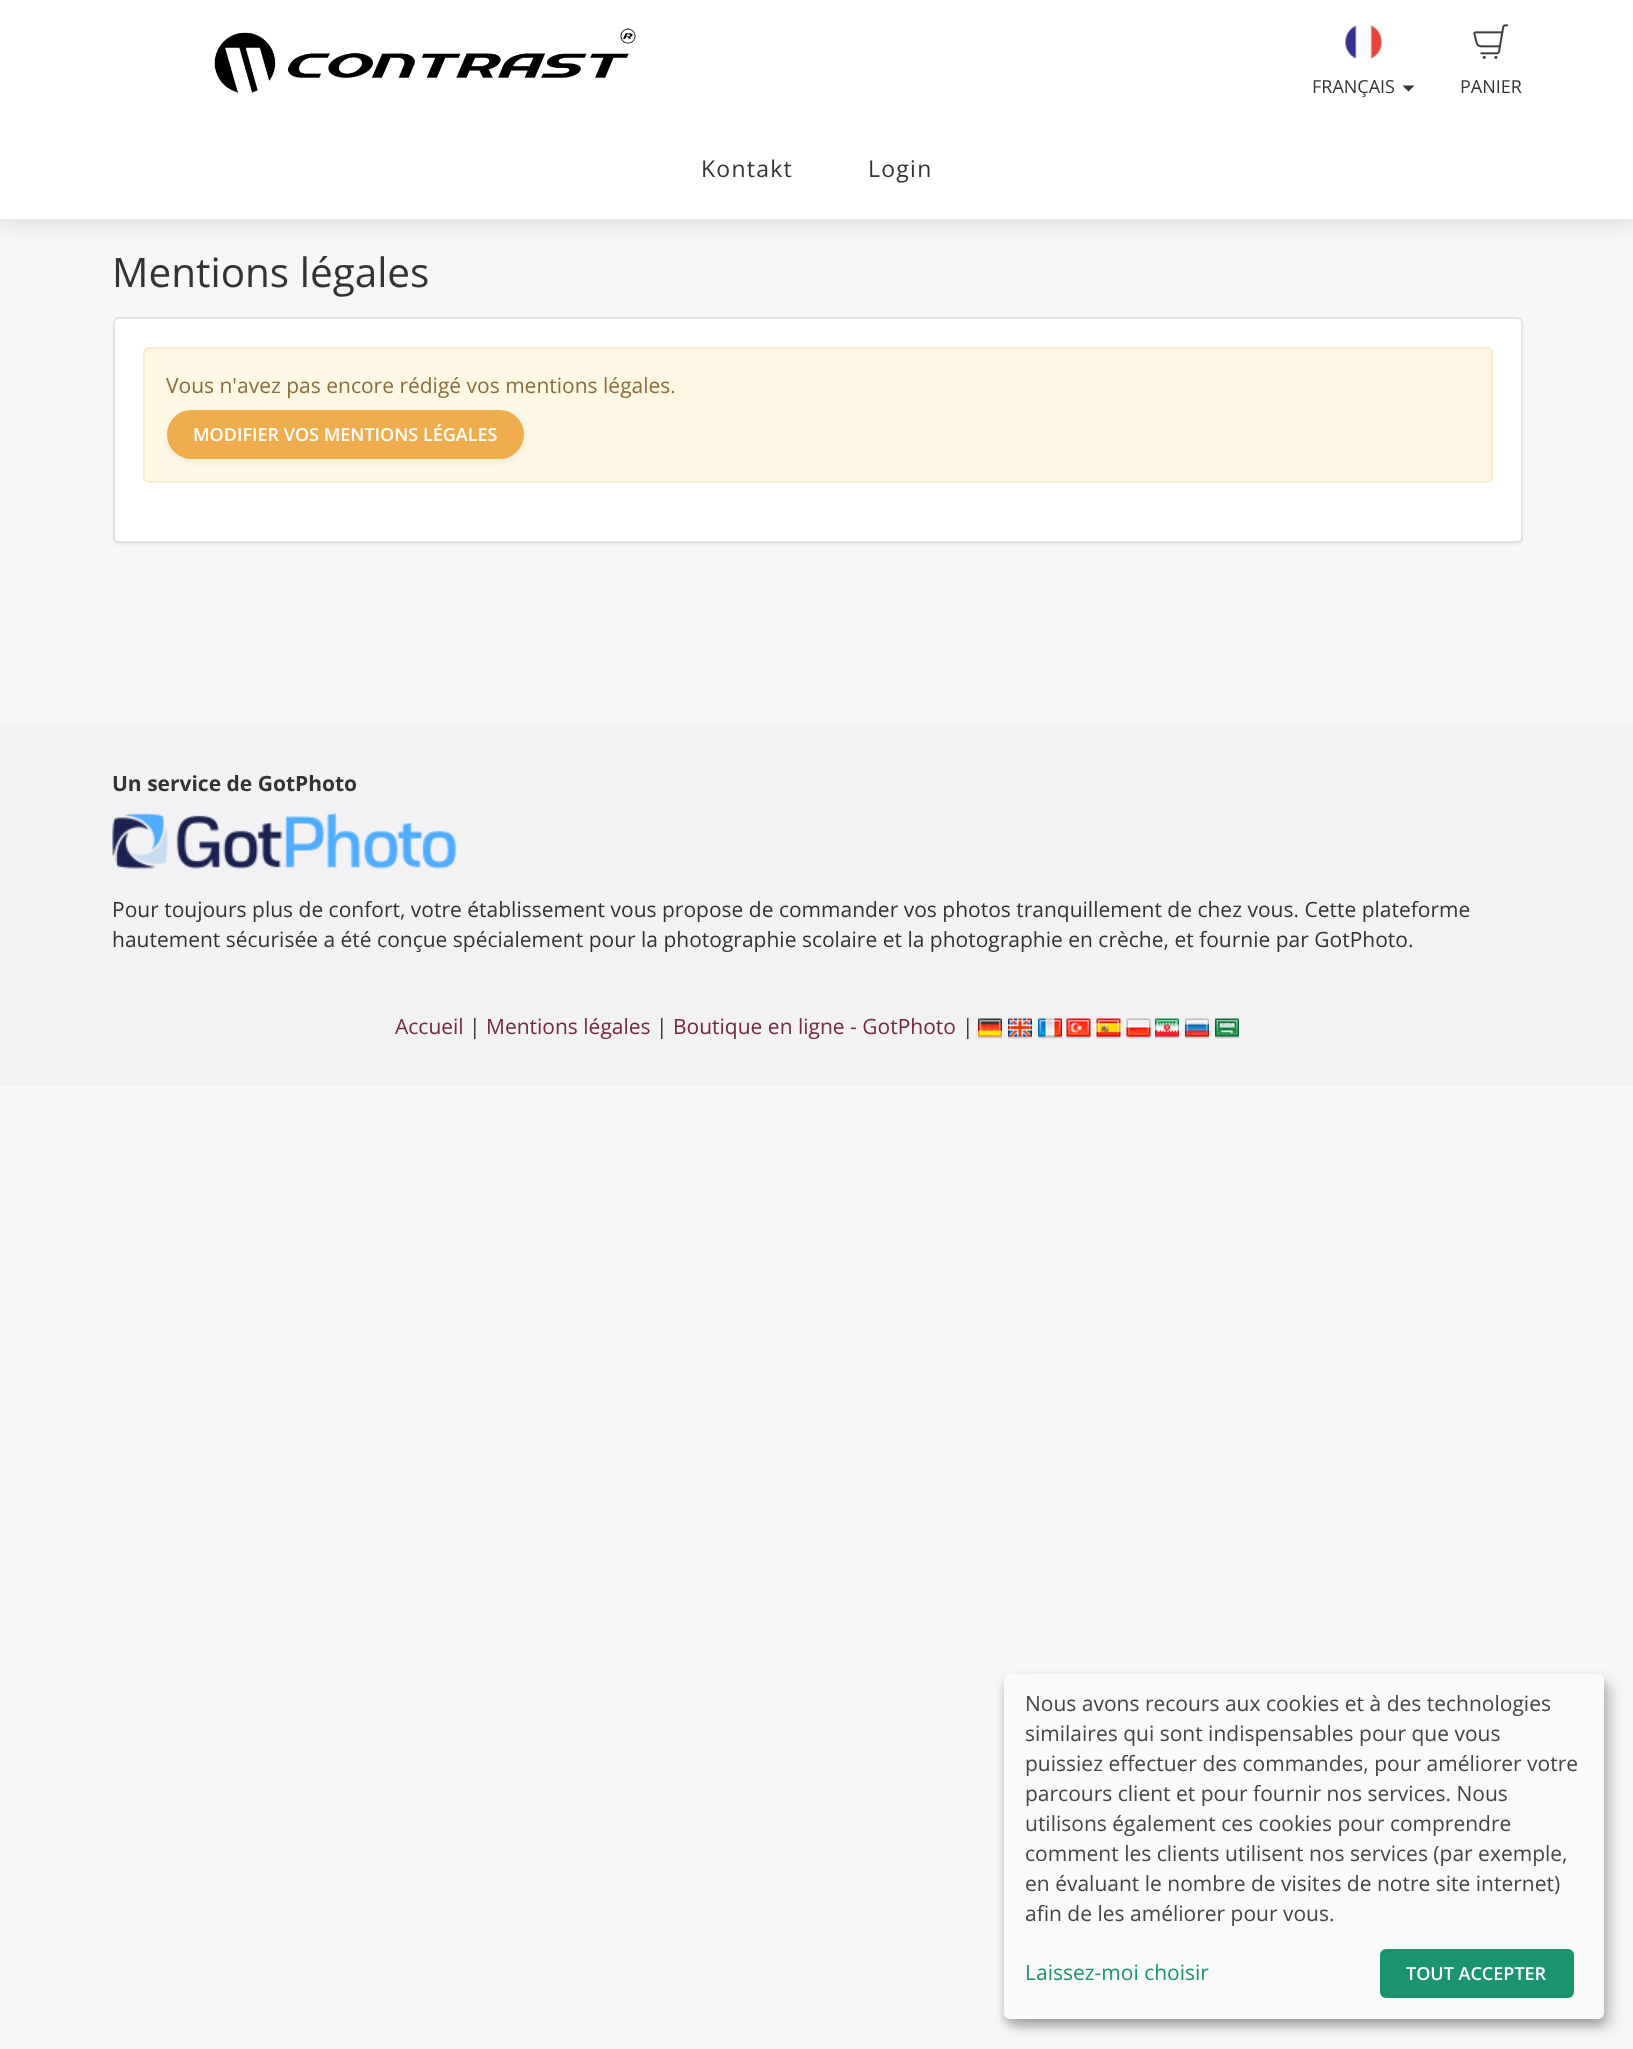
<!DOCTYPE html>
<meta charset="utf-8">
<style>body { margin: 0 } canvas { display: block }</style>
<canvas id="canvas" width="1633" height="2049"></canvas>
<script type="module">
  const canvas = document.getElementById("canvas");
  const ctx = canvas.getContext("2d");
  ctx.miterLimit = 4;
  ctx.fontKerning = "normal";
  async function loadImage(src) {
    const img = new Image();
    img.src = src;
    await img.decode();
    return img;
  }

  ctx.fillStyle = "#f6f7f8";
  ctx.fillRect(0, 0, 1633, 2049);
  ctx.fillStyle = "rgba(0, 0, 0, 0.14)";
  ctx.filter = "blur(13px)";
  ctx.beginPath();
  ctx.rect(-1, 119, 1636, 102);
  ctx.fill();
  ctx.filter = "none";
  ctx.fillStyle = "#ffffff";
  ctx.fillRect(0, 0, 1633, 219);
  ctx.drawImage(await loadImage("img1.png"), 214, 28, 422, 65);
  ctx.drawImage(await loadImage("img2.png"), 1345, 25, 37, 34);
  ctx.font = "18px Open Sans";
  ctx.fillStyle = "#333333";
  ctx.fillText("FRANÇAIS", 1312, 93);
  ctx.beginPath();
  ctx.moveTo(1402.5, 85.5);
  ctx.lineTo(1414.5, 85.5);
  ctx.lineTo(1408.5, 91.5);
  ctx.closePath();
  ctx.fill();
  ctx.drawImage(await loadImage("img3.png"), 1473, 24, 35, 35);
  ctx.fillText("PANIER", 1460, 93);
  ctx.letterSpacing = "1.25px";
  ctx.font = "23px Open Sans";
  ctx.fillText("Kontakt", 701, 177);
  ctx.fillText("Login", 868, 177);
  ctx.letterSpacing = "0px";
  ctx.font = "40.5px Open Sans";
  ctx.fillText("Mentions légales", 112, 287);
  ctx.fillStyle = "rgba(0, 0, 0, 0.05)";
  ctx.filter = "blur(1px)";
  ctx.beginPath();
  ctx.roundRect(113, 318, 1410, 227, 6);
  ctx.fill();
  ctx.filter = "none";
  ctx.fillStyle = "#ffffff";
  ctx.beginPath();
  ctx.roundRect(114, 318, 1408, 224, 5);
  ctx.fill();
  ctx.strokeStyle = "#e3e3e3";
  ctx.lineWidth = 2;
  ctx.stroke();
  ctx.fillStyle = "#fcf8e3";
  ctx.beginPath();
  ctx.roundRect(144, 348, 1348, 134, 5);
  ctx.fill();
  ctx.strokeStyle = "#faebcc";
  ctx.stroke();
  ctx.font = "21px Open Sans";
  ctx.fillStyle = "#8a6d3b";
  ctx.fillText("Vous n'avez pas encore rédigé vos mentions légales.", 166, 393);
  ctx.fillStyle = "rgba(0, 0, 0, 0.05)";
  ctx.filter = "blur(3px)";
  ctx.beginPath();
  ctx.roundRect(167, 413, 357, 49, 24.5);
  ctx.fill();
  ctx.filter = "none";
  ctx.fillStyle = "#f0ad4e";
  ctx.beginPath();
  ctx.roundRect(167, 410, 357, 49, 24.5);
  ctx.fill();
  ctx.font = "600 18px Open Sans";
  ctx.fillStyle = "#ffffff";
  ctx.fillText("MODIFIER VOS MENTIONS LÉGALES", 193, 441);
  ctx.fillStyle = "#f2f1f4";
  ctx.fillRect(0, 723, 1633, 363);
  ctx.font = "bold 21px Open Sans";
  ctx.fillStyle = "#333333";
  ctx.fillText("Un service de GotPhoto", 112, 791);
  ctx.drawImage(await loadImage("img4.png"), 112, 813, 345, 56);
  ctx.font = "21px Open Sans";
  ctx.fillText("Pour toujours plus de confort, votre établissement vous propose de commander vos photos tranquillement de chez vous. Cette plateforme", 112, 917);
  ctx.fillText("hautement sécurisée a été conçue spécialement pour la photographie scolaire et la photographie en crèche, et fournie par GotPhoto.", 112, 947);
  ctx.fillStyle = "#712941";
  ctx.fillText("Accueil", 395, 1034);
  ctx.fillStyle = "#333333";
  ctx.fillText("|", 469, 1034);
  ctx.fillStyle = "#712941";
  ctx.fillText("Mentions légales", 486, 1034);
  ctx.fillStyle = "#333333";
  ctx.fillText("|", 656, 1034);
  ctx.fillStyle = "#712941";
  ctx.fillText("Boutique en ligne - GotPhoto", 673, 1034);
  ctx.fillStyle = "#333333";
  ctx.fillText("|", 962, 1034);
  ctx.drawImage(await loadImage("img5.png"), 978, 1018, 24, 21);
  ctx.drawImage(await loadImage("img6.png"), 1008, 1018, 24, 21);
  ctx.drawImage(await loadImage("img7.png"), 1038, 1018, 24, 21);
  ctx.drawImage(await loadImage("img8.png"), 1066, 1018, 25, 21);
  ctx.drawImage(await loadImage("img9.png"), 1096, 1018, 25, 21);
  ctx.drawImage(await loadImage("img10.png"), 1126, 1018, 25, 21);
  ctx.drawImage(await loadImage("img11.png"), 1155, 1018, 24, 21);
  ctx.drawImage(await loadImage("img12.png"), 1185, 1018, 24, 21);
  ctx.drawImage(await loadImage("img13.png"), 1215, 1018, 24, 21);
  ctx.fillStyle = "rgba(0, 0, 0, 0.19)";
  ctx.filter = "blur(7.5px)";
  ctx.beginPath();
  ctx.roundRect(1011, 1682, 600, 345, 6);
  ctx.fill();
  ctx.filter = "none";
  ctx.fillStyle = "rgba(0, 0, 0, 0.2)";
  ctx.filter = "blur(4.5px)";
  ctx.beginPath();
  ctx.roundRect(1004, 1680, 600, 345, 6);
  ctx.fill();
  ctx.filter = "none";
  ctx.fillStyle = "#fafafa";
  ctx.beginPath();
  ctx.roundRect(1004, 1674, 600, 345, 6);
  ctx.fill();
  ctx.fillStyle = "#444444";
  ctx.fillText("Nous avons recours aux cookies et à des technologies", 1025, 1711);
  ctx.fillText("similaires qui sont indispensables pour que vous", 1025, 1741);
  ctx.fillText("puissiez effectuer des commandes, pour améliorer votre", 1025, 1771);
  ctx.fillText("parcours client et pour fournir nos services. Nous", 1025, 1801);
  ctx.fillText("utilisons également ces cookies pour comprendre", 1025, 1831);
  ctx.fillText("comment les clients utilisent nos services (par exemple,", 1025, 1861);
  ctx.fillText("en évaluant le nombre de visites de notre site internet)", 1025, 1891);
  ctx.fillText("afin de les améliorer pour vous.", 1025, 1921);
  ctx.fillStyle = "#1a936f";
  ctx.fillText("Laissez-moi choisir", 1025, 1980);
  ctx.beginPath();
  ctx.roundRect(1380, 1949, 194, 49, 6);
  ctx.fill();
  ctx.font = "600 18px Open Sans";
  ctx.fillStyle = "#ffffff";
  ctx.fillText("TOUT ACCEPTER", 1406, 1980);
</script>
